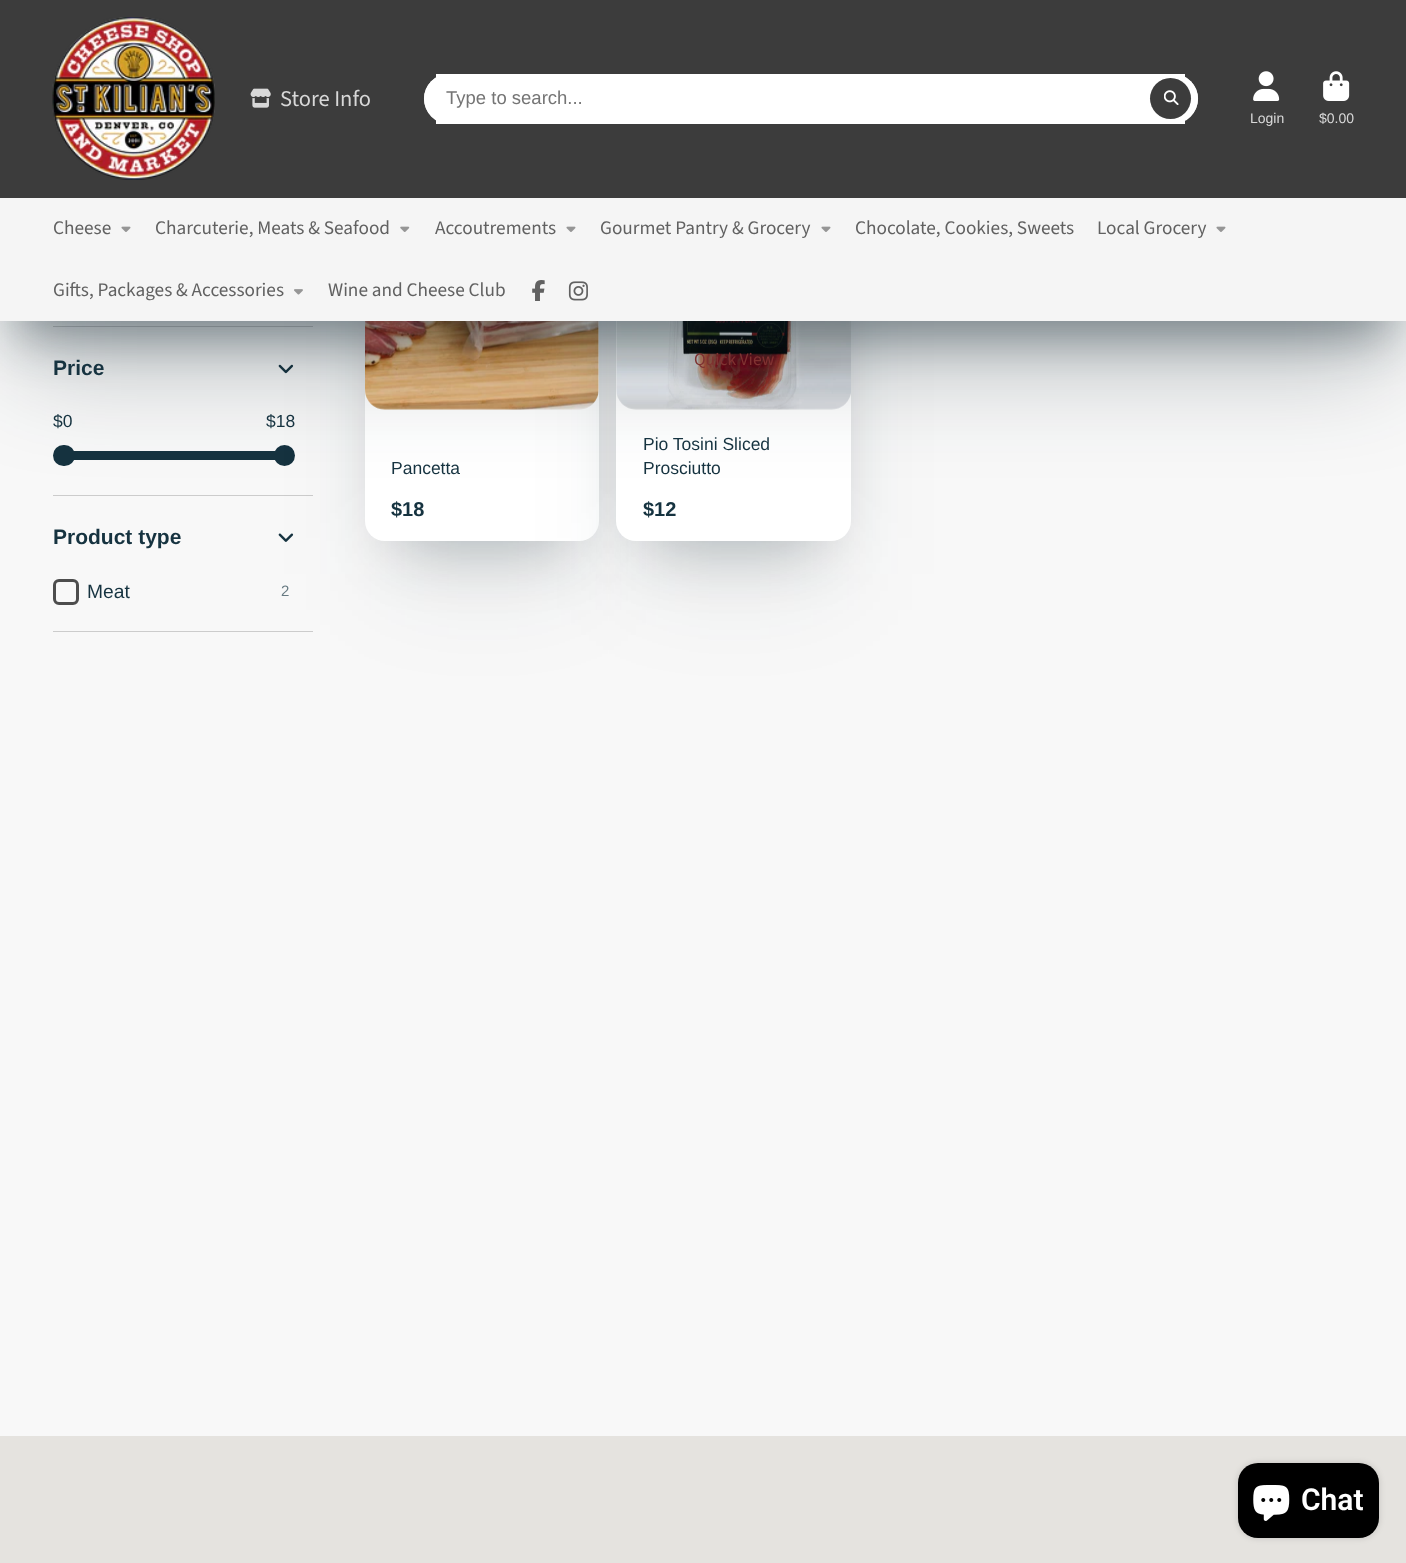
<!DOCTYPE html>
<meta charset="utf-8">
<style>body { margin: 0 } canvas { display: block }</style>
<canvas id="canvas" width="1406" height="1563"></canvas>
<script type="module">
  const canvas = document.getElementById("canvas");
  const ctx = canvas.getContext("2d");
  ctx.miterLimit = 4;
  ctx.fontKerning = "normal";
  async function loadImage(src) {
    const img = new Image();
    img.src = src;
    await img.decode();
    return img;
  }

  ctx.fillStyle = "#f8f8f8";
  ctx.fillRect(0, 0, 1406, 1563);
  ctx.fillStyle = "#cccccc";
  ctx.fillRect(53, 326, 260, 1);
  ctx.drawImage(await loadImage("img11.png"), 278, 364, 16, 10);
  ctx.fillRect(53, 495, 260, 1);
  ctx.fillRect(53, 631, 260, 1);
  ctx.fillStyle = "rgba(15, 36, 45, 0.3)";
  ctx.filter = "blur(33px)";
  ctx.beginPath();
  ctx.rect(398, 243, 168, 298);
  ctx.fill();
  ctx.filter = "none";
  ctx.fillStyle = "#163340";
  ctx.beginPath();
  ctx.roundRect(53, 445, 22, 21, 10.5);
  ctx.fill();
  ctx.beginPath();
  ctx.arc(284.5, 455.5, 10.5, 0, Math.PI * 2);
  ctx.fill();
  ctx.fillRect(74, 451, 201, 9);
  ctx.drawImage(await loadImage("img12.png"), 278, 533, 16, 9);
  ctx.fillStyle = "rgba(15, 36, 45, 0.1)";
  ctx.filter = "blur(54.5px)";
  ctx.beginPath();
  ctx.rect(388, 253, 190, 321);
  ctx.fill();
  ctx.filter = "none";
  ctx.fillStyle = "#ffffff";
  ctx.beginPath();
  ctx.roundRect(365, 176, 234, 365, 20);
  ctx.fill();
  ctx.drawImage(await loadImage("img13.png"), 365, 321, 234, 89);
  ctx.fillStyle = "rgba(15, 36, 45, 0.3)";
  ctx.filter = "blur(33px)";
  ctx.beginPath();
  ctx.rect(649, 243, 170, 298);
  ctx.fill();
  ctx.filter = "none";
  ctx.fillStyle = "rgba(15, 36, 45, 0.1)";
  ctx.filter = "blur(54.5px)";
  ctx.beginPath();
  ctx.rect(639, 253, 191, 321);
  ctx.fill();
  ctx.filter = "none";
  ctx.fillStyle = "#ffffff";
  ctx.beginPath();
  ctx.roundRect(616, 176, 235, 365, 20);
  ctx.fill();
  ctx.drawImage(await loadImage("img14.png"), 616, 321, 235, 89);
  ctx.fillStyle = "rgba(15, 36, 45, 0.4)";
  ctx.filter = "blur(24px)";
  ctx.beginPath();
  ctx.rect(18, 50, 1371, 286);
  ctx.fill();
  ctx.filter = "none";
  ctx.fillStyle = "rgba(15, 36, 45, 0.3)";
  ctx.filter = "blur(54.5px)";
  ctx.beginPath();
  ctx.rect(18, 73, 1371, 286);
  ctx.fill();
  ctx.filter = "none";
  ctx.fillStyle = "#3c3c3c";
  ctx.fillRect(0, 0, 1406, 198);
  ctx.drawImage(await loadImage("img1.png"), 52, 17, 163, 163);
  ctx.drawImage(await loadImage("img2.png"), 250, 88, 21, 20);
  ctx.font = "22.5px Source Sans Pro";
  ctx.fillStyle = "#d8d8d8";
  ctx.fillText("Store Info", 280, 106);
  ctx.fillStyle = "#ffffff";
  ctx.beginPath();
  ctx.roundRect(424, 74, 774, 50, 25);
  ctx.fill();
  ctx.fillRect(436, 74, 749, 50);
  ctx.beginPath();
  ctx.roundRect(424, 74, 774, 49, 24.5);
  ctx.fill();
  ctx.font = "18.5px Liberation Sans";
  ctx.fillStyle = "#757575";
  ctx.fillText("Type to search...", 446, 104);
  ctx.fillStyle = "#3c3c3c";
  ctx.beginPath();
  ctx.arc(1170.5, 98.5, 20.5, 0, Math.PI * 2);
  ctx.fill();
  ctx.drawImage(await loadImage("img3.png"), 1164, 90, 15, 15);
  ctx.drawImage(await loadImage("img4.png"), 1253, 71, 27, 30);
  ctx.font = "14px Liberation Sans";
  ctx.fillStyle = "#d8d8d8";
  ctx.fillText("Login", 1250, 123);
  ctx.drawImage(await loadImage("img5.png"), 1323, 71, 27, 30);
  ctx.fillText("$0.00", 1319, 123);
  ctx.fillStyle = "#f5f5f5";
  ctx.fillRect(0, 198, 1406, 123);
  ctx.font = "19.25px Source Sans Pro";
  ctx.fillStyle = "#616161";
  ctx.fillText("Cheese", 53, 234);
  ctx.drawImage(await loadImage("img6.png"), 121, 226, 10, 6);
  ctx.fillText("Charcuterie, Meats & Seafood", 155, 234);
  ctx.drawImage(await loadImage("img7.png"), 400, 226, 10, 6);
  ctx.fillText("Accoutrements", 435, 234);
  ctx.drawImage(await loadImage("img6.png"), 566, 226, 10, 6);
  ctx.fillText("Gourmet Pantry & Grocery", 600, 234);
  ctx.drawImage(await loadImage("img6.png"), 821, 226, 10, 6);
  ctx.fillText("Chocolate, Cookies, Sweets", 855, 234);
  ctx.fillText("Local Grocery", 1097, 234);
  ctx.drawImage(await loadImage("img6.png"), 1216, 226, 10, 6);
  ctx.fillText("Gifts, Packages & Accessories", 53, 296);
  ctx.drawImage(await loadImage("img8.png"), 294, 289, 9, 6);
  ctx.fillText("Wine and Cheese Club", 328, 296);
  ctx.drawImage(await loadImage("img9.png"), 532, 280, 13, 21);
  ctx.drawImage(await loadImage("img10.png"), 568, 281, 20, 20);
  ctx.font = "bold 21px Liberation Sans";
  ctx.fillStyle = "#163340";
  ctx.fillText("Price", 53, 375);
  ctx.font = "17.5px Liberation Sans";
  ctx.fillText("$0", 53, 427);
  ctx.fillText("$18", 266, 427);
  ctx.font = "bold 21px Liberation Sans";
  ctx.fillText("Product type", 53, 544);
  ctx.beginPath();
  ctx.roundRect(54.5, 580.5, 23, 23, 4.5);
  ctx.strokeStyle = "#4d4d4d";
  ctx.lineWidth = 3;
  ctx.stroke();
  ctx.font = "19.25px Liberation Sans";
  ctx.fillText("Meat", 87, 598);
  ctx.font = "15px Liberation Sans";
  ctx.fillStyle = "#677a82";
  ctx.fillText("2", 281, 596);
  ctx.font = "17.5px Liberation Sans";
  ctx.fillStyle = "#163340";
  ctx.fillText("Pancetta", 391, 474);
  ctx.font = "bold 20px Liberation Sans";
  ctx.fillText("$18", 391, 516);
  ctx.font = "17.5px Source Sans Pro";
  ctx.fillStyle = "#7f3231";
  ctx.fillText("Quick View", 694, 365);
  ctx.font = "17.5px Liberation Sans";
  ctx.fillStyle = "#163340";
  ctx.fillText("Pio Tosini Sliced", 643, 450);
  ctx.fillText("Prosciutto", 643, 474);
  ctx.font = "bold 20px Liberation Sans";
  ctx.fillText("$12", 643, 516);
  ctx.fillStyle = "#e5e3df";
  ctx.fillRect(0, 1436, 1406, 127);
  ctx.fillStyle = "rgba(0, 0, 0, 0.15)";
  ctx.filter = "blur(3px)";
  ctx.beginPath();
  ctx.roundRect(1238, 1463, 141, 75, 20);
  ctx.fill();
  ctx.filter = "none";
  ctx.fillStyle = "#000000";
  ctx.beginPath();
  ctx.roundRect(1238, 1463, 141, 75, 20);
  ctx.fill();
  ctx.drawImage(await loadImage("img15.png"), 1253, 1485, 37, 36);
  ctx.font = "600 30px Roboto";
  ctx.fillStyle = "#ffffff";
  ctx.fillText("Chat", 1301, 1510);
</script>
